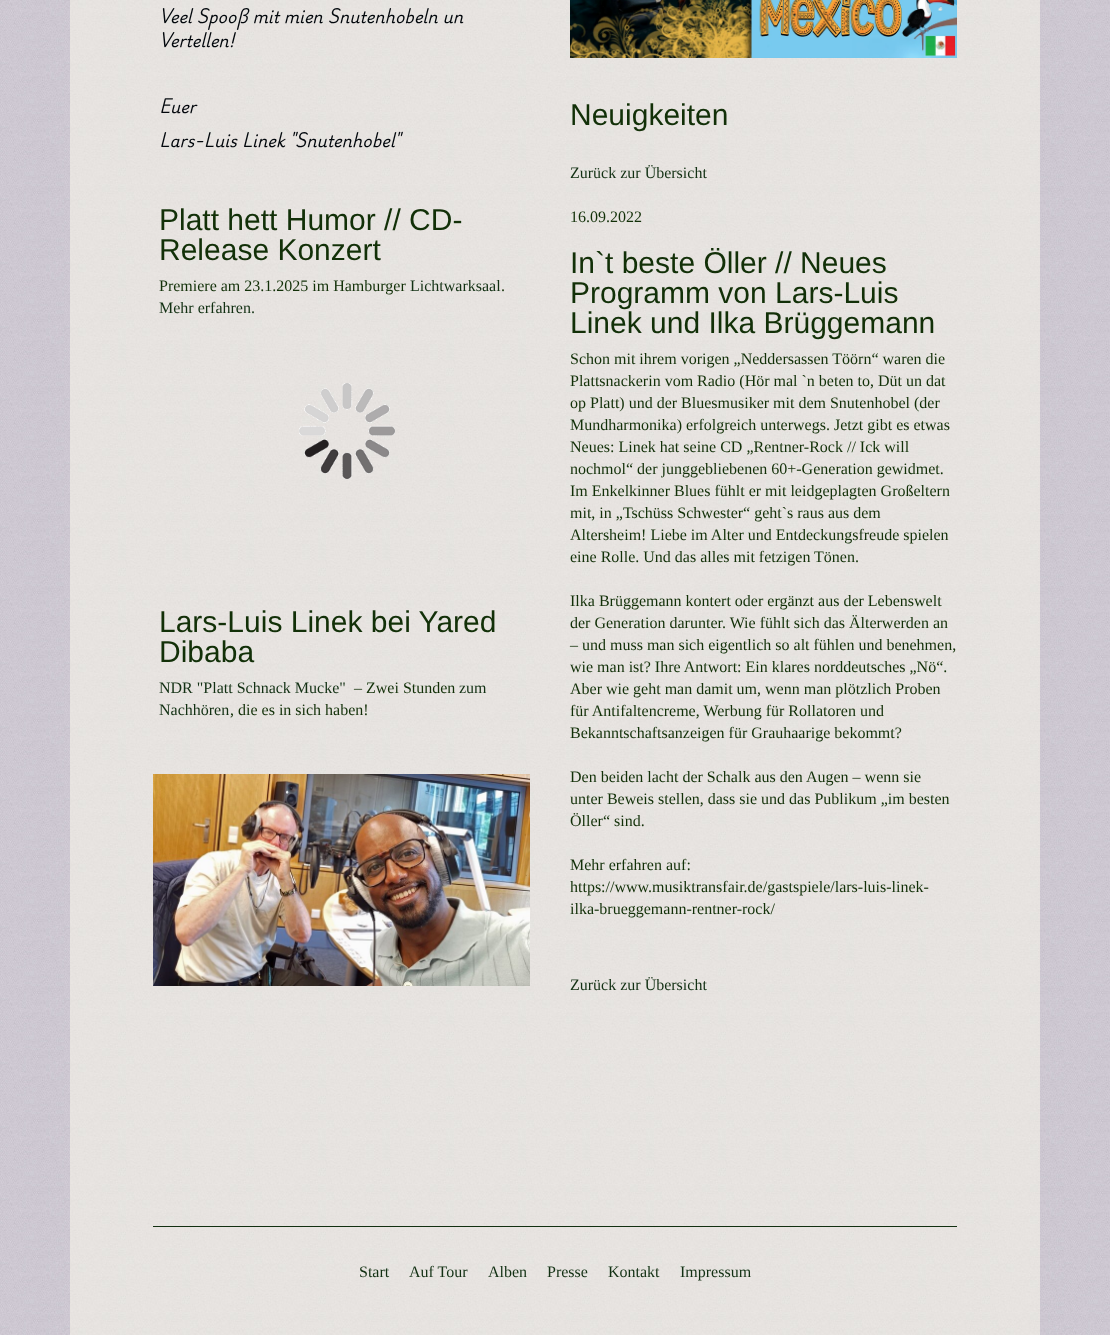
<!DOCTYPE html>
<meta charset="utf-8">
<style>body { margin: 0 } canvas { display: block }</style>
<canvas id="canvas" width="1110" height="1335"></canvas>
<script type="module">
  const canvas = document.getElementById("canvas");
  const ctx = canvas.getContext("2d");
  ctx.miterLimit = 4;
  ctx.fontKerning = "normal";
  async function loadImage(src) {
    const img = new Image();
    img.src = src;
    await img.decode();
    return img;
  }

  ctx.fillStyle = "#ffffff";
  ctx.fillRect(0, 0, 1110, 1335);
  ctx.drawImage(await loadImage("img1.png"), 0, 0, 1110, 1335);
  ctx.drawImage(await loadImage("img2.png"), 70, 0, 970, 1335);
  ctx.font = "italic 16px Playwrite DE Grund";
  ctx.fillStyle = "#02070c";
  ctx.fillText("Veel Spooß mit mien Snutenhobeln un", 159, 23);
  ctx.fillText("Vertellen!", 159, 47);
  ctx.fillText("Euer", 159, 113);
  ctx.fillText("Lars-Luis Linek \"Snutenhobel\"", 159, 147);
  ctx.font = "30px Liberation Sans";
  ctx.fillStyle = "#123008";
  ctx.fillText("Platt hett Humor // CD-", 159, 230);
  ctx.fillText("Release Konzert", 159, 260);
  ctx.font = "16px Liberation Serif";
  ctx.fillText("Premiere am 23.1.2025 im Hamburger", 159, 291);
  ctx.fillStyle = "#123013";
  ctx.fillText("Lichtwarksaal", 410, 291);
  ctx.fillStyle = "#123008";
  ctx.fillText(".", 501, 291);
  ctx.fillStyle = "#123013";
  ctx.fillText("Mehr erfahren.", 159, 313);
  ctx.drawImage(await loadImage("img3.png"), 299, 383, 96, 96);
  ctx.font = "30px Liberation Sans";
  ctx.fillStyle = "#123008";
  ctx.fillText("Lars-Luis Linek bei Yared", 159, 632);
  ctx.fillText("Dibaba", 159, 662);
  ctx.font = "16px Liberation Serif";
  ctx.fillStyle = "#123013";
  ctx.fillText("NDR \"Platt Schnack Mucke\"", 159, 693);
  ctx.fillStyle = "#123008";
  ctx.fillText("– Zwei Stunden", 354, 693);
  ctx.fillStyle = "#123013";
  ctx.fillText("zum", 459, 693);
  ctx.fillText("Nachhören", 159, 715);
  ctx.fillStyle = "#123008";
  ctx.fillText(", die es in sich haben!", 230, 715);
  ctx.drawImage(await loadImage("img4.png"), 153, 774, 377, 212);
  ctx.drawImage(await loadImage("img5.png"), 570, 0, 387, 58);
  ctx.font = "30px Liberation Sans";
  ctx.fillText("Neuigkeiten", 570, 125);
  ctx.font = "16px Liberation Serif";
  ctx.fillStyle = "#123013";
  ctx.fillText("Zurück zur Übersicht", 570, 178);
  ctx.fillStyle = "#123008";
  ctx.fillText("16.09.2022", 570, 222);
  ctx.font = "30px Liberation Sans";
  ctx.fillText("In`t beste Öller // Neues", 570, 273);
  ctx.fillText("Programm von Lars-Luis", 570, 303);
  ctx.fillText("Linek und Ilka Brüggemann", 570, 333);
  ctx.font = "16px Liberation Serif";
  ctx.fillText("Schon mit ihrem vorigen „Neddersassen Töörn“ waren die", 570, 364);
  ctx.fillText("Plattsnackerin vom Radio (Hör mal `n beten to, Düt un dat", 570, 386);
  ctx.fillText("op Platt) und der Bluesmusiker mit dem Snutenhobel (der", 570, 408);
  ctx.fillText("Mundharmonika) erfolgreich unterwegs. Jetzt gibt es etwas", 570, 430);
  ctx.fillText("Neues: Linek hat seine CD „Rentner-Rock // Ick will", 570, 452);
  ctx.fillText("nochmol“ der junggebliebenen 60+-Generation gewidmet.", 570, 474);
  ctx.fillText("Im Enkelkinner Blues fühlt er mit leidgeplagten Großeltern", 570, 496);
  ctx.fillText("mit, in „Tschüss Schwester“ geht`s raus aus dem", 570, 518);
  ctx.fillText("Altersheim! Liebe im Alter und Entdeckungsfreude spielen", 570, 540);
  ctx.fillText("eine Rolle. Und das alles mit fetzigen Tönen.", 570, 562);
  ctx.fillText("Ilka Brüggemann kontert oder ergänzt aus der Lebenswelt", 570, 606);
  ctx.fillText("der Generation darunter. Wie fühlt sich das Älterwerden an", 570, 628);
  ctx.fillText("– und muss man sich eigentlich so alt fühlen und benehmen,", 570, 650);
  ctx.fillText("wie man ist? Ihre Antwort: Ein klares norddeutsches „Nö“.", 570, 672);
  ctx.fillText("Aber wie geht man damit um, wenn man plötzlich Proben", 570, 694);
  ctx.fillText("für Antifaltencreme, Werbung für Rollatoren und", 570, 716);
  ctx.fillText("Bekanntschaftsanzeigen für Grauhaarige bekommt?", 570, 738);
  ctx.fillText("Den beiden lacht der Schalk aus den Augen – wenn sie", 570, 782);
  ctx.fillText("unter Beweis stellen, dass sie und das Publikum „im besten", 570, 804);
  ctx.fillText("Öller“ sind.", 570, 826);
  ctx.fillText("Mehr erfahren auf:", 570, 870);
  ctx.fillText("https://www.musiktransfair.de/gastspiele/lars-luis-linek-", 570, 892);
  ctx.fillText("ilka-brueggemann-rentner-rock/", 570, 914);
  ctx.fillStyle = "#123013";
  ctx.fillText("Zurück zur Übersicht", 570, 990);
  ctx.fillStyle = "#123011";
  ctx.fillRect(153, 1226, 804, 1);
  ctx.fillStyle = "#123013";
  ctx.fillText("Start", 359, 1277);
  ctx.fillText("Auf Tour", 409, 1277);
  ctx.fillText("Alben", 488, 1277);
  ctx.fillText("Presse", 547, 1277);
  ctx.fillText("Kontakt", 608, 1277);
  ctx.fillText("Impressum", 680, 1277);
</script>
